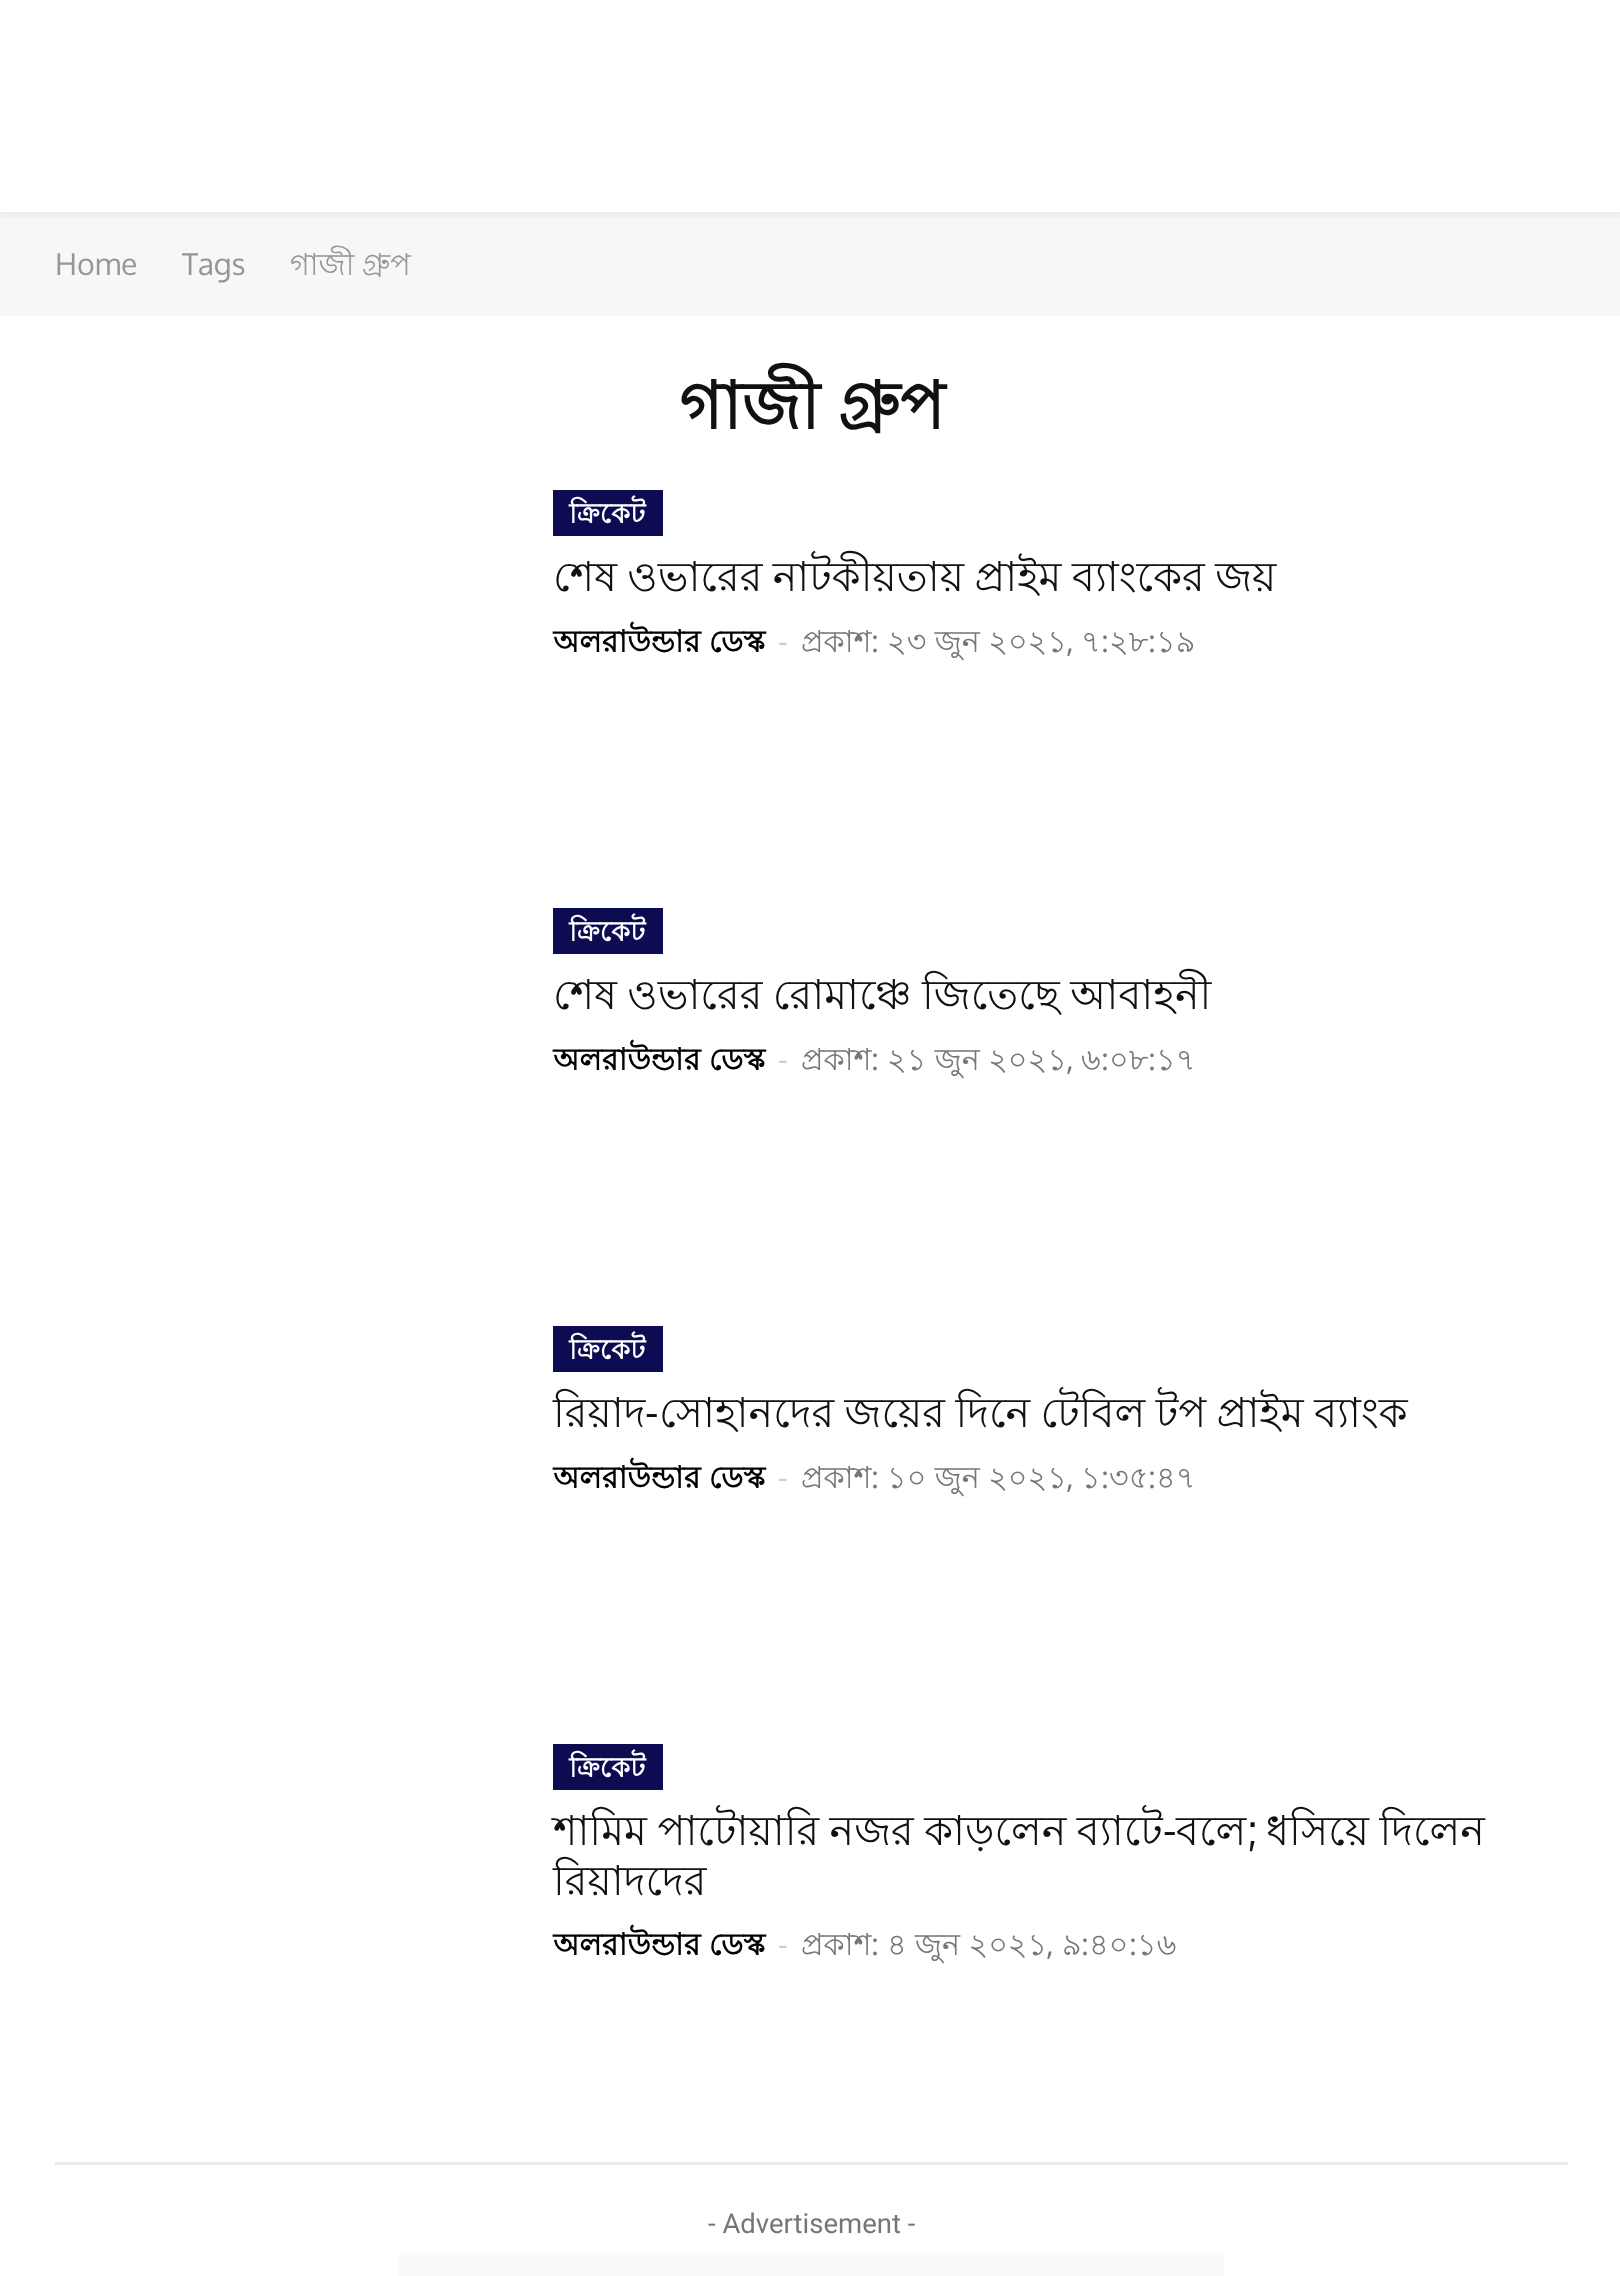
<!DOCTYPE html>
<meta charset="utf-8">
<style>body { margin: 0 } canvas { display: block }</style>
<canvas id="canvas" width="1620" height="2276"></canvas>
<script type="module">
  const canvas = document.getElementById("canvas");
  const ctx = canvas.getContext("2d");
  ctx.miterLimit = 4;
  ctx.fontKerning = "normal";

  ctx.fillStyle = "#ffffff";
  ctx.fillRect(0, 0, 1620, 2276);
  ctx.fillStyle = "#f7f7f7";
  ctx.fillRect(0, 212, 1620, 104);
  ctx.save();
  ctx.beginPath();
  ctx.rect(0, 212, 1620, 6);
  ctx.clip();
  ctx.fillStyle = "rgba(0, 0, 0, 0.05)";
  ctx.filter = "blur(4px)";
  ctx.beginPath();
  ctx.rect(0, 8, 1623, 209);
  ctx.fill();
  ctx.filter = "none";
  ctx.restore();
  ctx.font = "30.25px Oxygen";
  ctx.fillStyle = "#969696";
  ctx.fillText("Home", 55, 275);
  ctx.fillText("Tags", 182, 275);
  ctx.wordSpacing = "-1px";
  ctx.font = "30.25px Lohit Bengali";
  ctx.fillText("গাজী গ্রুপ", 290, 275);
  ctx.wordSpacing = "0px";
  ctx.font = "bold 66px Lohit Bengali";
  ctx.fillStyle = "#111111";
  ctx.fillText("গাজী গ্রুপ", 679, 429);
  ctx.fillStyle = "#0d0b52";
  ctx.fillRect(553, 490, 110, 46);
  ctx.font = "bold 27.5px Lohit Bengali";
  ctx.fillStyle = "#ffffff";
  ctx.fillText("ক্রিকেট", 569, 523);
  ctx.wordSpacing = "-1px";
  ctx.font = "41.25px Lohit Bengali";
  ctx.fillStyle = "#111111";
  ctx.fillText("শেষ ওভারের নাটকীয়তায় প্রাইম ব্যাংকের জয়", 553, 591);
  ctx.wordSpacing = "0px";
  ctx.font = "bold 30.25px Lohit Bengali";
  ctx.fillStyle = "#000000";
  ctx.fillText("অলরাউন্ডার ডেস্ক", 553, 652);
  ctx.font = "30.25px Open Sans";
  ctx.fillStyle = "#cccccc";
  ctx.fillText("-", 778, 652);
  ctx.font = "30.25px Lohit Bengali";
  ctx.fillStyle = "#767676";
  ctx.fillText("প্রকাশ", 801, 652);
  ctx.font = "30.25px Open Sans";
  ctx.fillText(":", 871, 652);
  ctx.font = "30.25px Lohit Bengali";
  ctx.fillText("২৩ জুন ২০২১", 887, 652);
  ctx.font = "30.25px Open Sans";
  ctx.fillText(",", 1066, 652);
  ctx.font = "30.25px Lohit Bengali";
  ctx.fillText("৭", 1081, 652);
  ctx.font = "30.25px Open Sans";
  ctx.fillText(":", 1101, 652);
  ctx.font = "30.25px Lohit Bengali";
  ctx.fillText("২৮", 1109, 652);
  ctx.font = "30.25px Open Sans";
  ctx.fillText(":", 1148, 652);
  ctx.font = "30.25px Lohit Bengali";
  ctx.fillText("১৯", 1156, 652);
  ctx.fillStyle = "#0d0b52";
  ctx.fillRect(553, 908, 110, 46);
  ctx.font = "bold 27.5px Lohit Bengali";
  ctx.fillStyle = "#ffffff";
  ctx.fillText("ক্রিকেট", 569, 941);
  ctx.wordSpacing = "-1px";
  ctx.font = "41.25px Lohit Bengali";
  ctx.fillStyle = "#111111";
  ctx.fillText("শেষ ওভারের রোমাঞ্চে জিতেছে আবাহনী", 553, 1009);
  ctx.wordSpacing = "0px";
  ctx.font = "bold 30.25px Lohit Bengali";
  ctx.fillStyle = "#000000";
  ctx.fillText("অলরাউন্ডার ডেস্ক", 553, 1070);
  ctx.font = "30.25px Open Sans";
  ctx.fillStyle = "#cccccc";
  ctx.fillText("-", 778, 1070);
  ctx.font = "30.25px Lohit Bengali";
  ctx.fillStyle = "#767676";
  ctx.fillText("প্রকাশ", 801, 1070);
  ctx.font = "30.25px Open Sans";
  ctx.fillText(":", 871, 1070);
  ctx.font = "30.25px Lohit Bengali";
  ctx.fillText("২১ জুন ২০২১", 887, 1070);
  ctx.font = "30.25px Open Sans";
  ctx.fillText(",", 1066, 1070);
  ctx.font = "30.25px Lohit Bengali";
  ctx.fillText("৬", 1081, 1070);
  ctx.font = "30.25px Open Sans";
  ctx.fillText(":", 1101, 1070);
  ctx.font = "30.25px Lohit Bengali";
  ctx.fillText("০৮", 1109, 1070);
  ctx.font = "30.25px Open Sans";
  ctx.fillText(":", 1148, 1070);
  ctx.font = "30.25px Lohit Bengali";
  ctx.fillText("১৭", 1156, 1070);
  ctx.fillStyle = "#0d0b52";
  ctx.fillRect(553, 1326, 110, 46);
  ctx.font = "bold 27.5px Lohit Bengali";
  ctx.fillStyle = "#ffffff";
  ctx.fillText("ক্রিকেট", 569, 1359);
  ctx.font = "41.25px Lohit Bengali";
  ctx.fillStyle = "#111111";
  ctx.fillText("রিয়াদ", 553, 1427);
  ctx.font = "41.25px Oxygen";
  ctx.fillText("-", 645, 1427);
  ctx.wordSpacing = "-1px";
  ctx.font = "41.25px Lohit Bengali";
  ctx.fillText("সোহানদের জয়ের দিনে টেবিল টপ প্রাইম ব্যাংক", 659, 1427);
  ctx.wordSpacing = "0px";
  ctx.font = "bold 30.25px Lohit Bengali";
  ctx.fillStyle = "#000000";
  ctx.fillText("অলরাউন্ডার ডেস্ক", 553, 1488);
  ctx.font = "30.25px Open Sans";
  ctx.fillStyle = "#cccccc";
  ctx.fillText("-", 778, 1488);
  ctx.font = "30.25px Lohit Bengali";
  ctx.fillStyle = "#767676";
  ctx.fillText("প্রকাশ", 801, 1488);
  ctx.font = "30.25px Open Sans";
  ctx.fillText(":", 871, 1488);
  ctx.font = "30.25px Lohit Bengali";
  ctx.fillText("১০ জুন ২০২১", 887, 1488);
  ctx.font = "30.25px Open Sans";
  ctx.fillText(",", 1066, 1488);
  ctx.font = "30.25px Lohit Bengali";
  ctx.fillText("১", 1081, 1488);
  ctx.font = "30.25px Open Sans";
  ctx.fillText(":", 1101, 1488);
  ctx.font = "30.25px Lohit Bengali";
  ctx.fillText("৩৫", 1109, 1488);
  ctx.font = "30.25px Open Sans";
  ctx.fillText(":", 1148, 1488);
  ctx.font = "30.25px Lohit Bengali";
  ctx.fillText("৪৭", 1156, 1488);
  ctx.fillStyle = "#0d0b52";
  ctx.fillRect(553, 1744, 110, 46);
  ctx.font = "bold 27.5px Lohit Bengali";
  ctx.fillStyle = "#ffffff";
  ctx.fillText("ক্রিকেট", 569, 1777);
  ctx.wordSpacing = "-1px";
  ctx.font = "41.25px Lohit Bengali";
  ctx.fillStyle = "#111111";
  ctx.fillText("শামিম পাটোয়ারি নজর কাড়লেন ব্যাটে", 553, 1845);
  ctx.wordSpacing = "0px";
  ctx.font = "41.25px Oxygen";
  ctx.fillText("-", 1163, 1845);
  ctx.font = "41.25px Lohit Bengali";
  ctx.fillText("বলে", 1176, 1845);
  ctx.font = "41.25px Oxygen";
  ctx.fillText(";", 1247, 1845);
  ctx.wordSpacing = "-1px";
  ctx.font = "41.25px Lohit Bengali";
  ctx.fillText("ধসিয়ে দিলেন", 1266, 1845);
  ctx.wordSpacing = "0px";
  ctx.fillText("রিয়াদদের", 553, 1895);
  ctx.font = "bold 30.25px Lohit Bengali";
  ctx.fillStyle = "#000000";
  ctx.fillText("অলরাউন্ডার ডেস্ক", 553, 1955);
  ctx.font = "30.25px Open Sans";
  ctx.fillStyle = "#cccccc";
  ctx.fillText("-", 778, 1955);
  ctx.font = "30.25px Lohit Bengali";
  ctx.fillStyle = "#767676";
  ctx.fillText("প্রকাশ", 801, 1955);
  ctx.font = "30.25px Open Sans";
  ctx.fillText(":", 871, 1955);
  ctx.font = "30.25px Lohit Bengali";
  ctx.fillText("৪ জুন ২০২১", 887, 1955);
  ctx.font = "30.25px Open Sans";
  ctx.fillText(",", 1046, 1955);
  ctx.font = "30.25px Lohit Bengali";
  ctx.fillText("৯", 1062, 1955);
  ctx.font = "30.25px Open Sans";
  ctx.fillText(":", 1081, 1955);
  ctx.font = "30.25px Lohit Bengali";
  ctx.fillText("৪০", 1089, 1955);
  ctx.font = "30.25px Open Sans";
  ctx.fillText(":", 1129, 1955);
  ctx.font = "30.25px Lohit Bengali";
  ctx.fillText("১৬", 1137, 1955);
  ctx.fillStyle = "#eaeaea";
  ctx.fillRect(55, 2162, 1513, 3);
  ctx.font = "27.5px Roboto";
  ctx.fillStyle = "#767676";
  ctx.fillText("- Advertisement -", 708, 2233);
  ctx.fillStyle = "#fafafa";
  ctx.fillRect(399, 2252, 825, 24);
</script>
